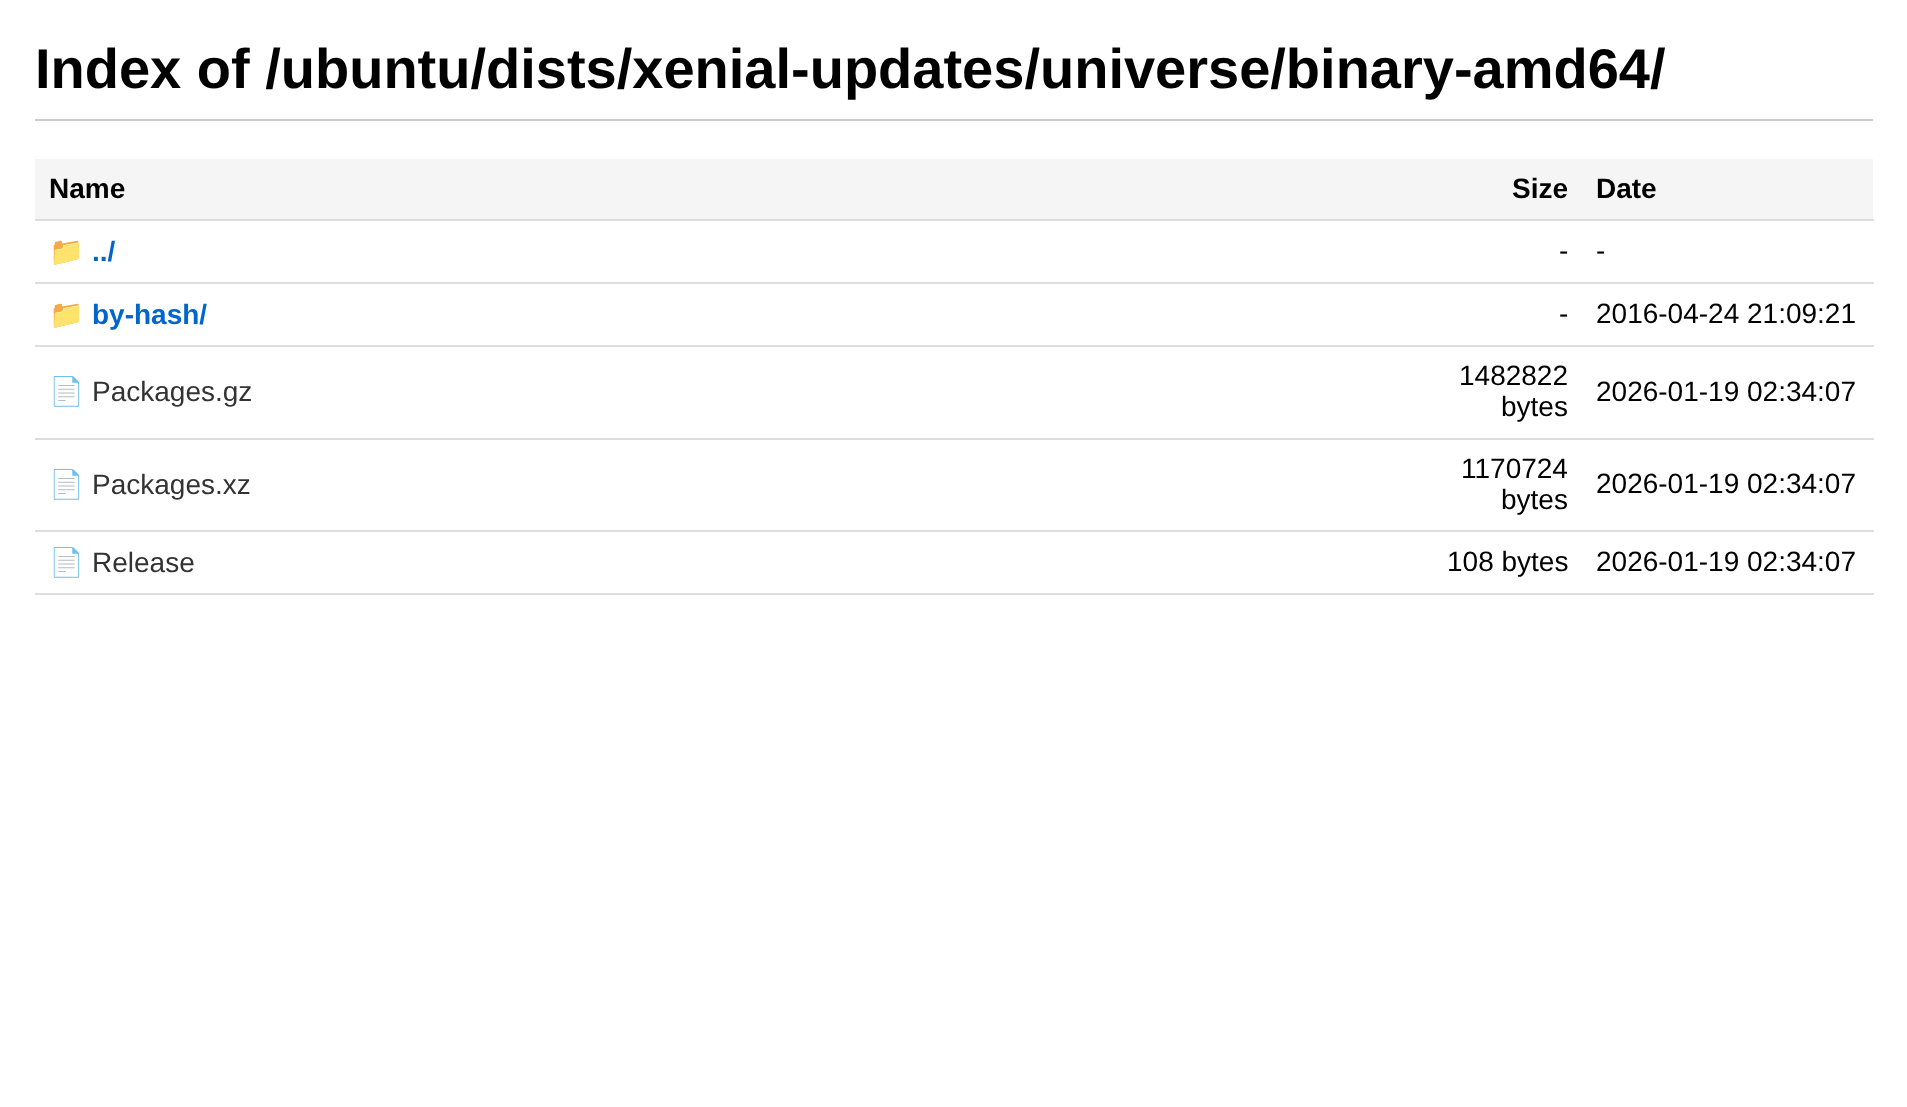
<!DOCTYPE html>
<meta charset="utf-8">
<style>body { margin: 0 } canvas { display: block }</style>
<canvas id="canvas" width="1907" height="1107"></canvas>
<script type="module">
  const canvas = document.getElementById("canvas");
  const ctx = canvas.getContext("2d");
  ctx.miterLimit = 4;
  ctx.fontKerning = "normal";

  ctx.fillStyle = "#ffffff";
  ctx.fillRect(0, 0, 1907, 1107);
  ctx.fillStyle = "#cccccc";
  ctx.fillRect(35, 119, 1838, 2);
  ctx.font = "bold 56px Liberation Sans";
  ctx.fillStyle = "#000000";
  ctx.fillText("Index of /ubuntu/dists/xenial-updates/universe/binary-amd64/", 35, 88);
  ctx.fillStyle = "#f5f5f5";
  ctx.fillRect(35, 159, 1838, 60);
  ctx.font = "bold 28px Liberation Sans";
  ctx.fillStyle = "#000000";
  ctx.fillText("Name", 49, 198);
  ctx.fillText("Size", 1512, 198);
  ctx.fillStyle = "#dddddd";
  ctx.fillRect(35, 219, 1839, 2);
  ctx.fillStyle = "#000000";
  ctx.fillText("Date", 1596, 198);
  ctx.font = "bold 28px Noto Color Emoji";
  ctx.fillStyle = "#0066cc";
  ctx.fillText("📁", 49, 261);
  ctx.font = "bold 28px Liberation Sans";
  ctx.fillText("../", 92, 261);
  ctx.font = "28px Liberation Sans";
  ctx.fillStyle = "#000000";
  ctx.fillText("-", 1559, 260);
  ctx.fillStyle = "#dddddd";
  ctx.fillRect(35, 282, 1839, 2);
  ctx.fillStyle = "#000000";
  ctx.fillText("-", 1596, 260);
  ctx.font = "bold 28px Noto Color Emoji";
  ctx.fillStyle = "#0066cc";
  ctx.fillText("📁", 49, 324);
  ctx.font = "bold 28px Liberation Sans";
  ctx.fillText("by-hash/", 92, 324);
  ctx.font = "28px Liberation Sans";
  ctx.fillStyle = "#000000";
  ctx.fillText("-", 1559, 323);
  ctx.fillStyle = "#dddddd";
  ctx.fillRect(35, 345, 1839, 2);
  ctx.fillStyle = "#000000";
  ctx.fillText("2016-04-24 21:09:21", 1596, 323);
  ctx.font = "28px Noto Color Emoji";
  ctx.fillStyle = "#333333";
  ctx.fillText("📄", 49, 401);
  ctx.font = "28px Liberation Sans";
  ctx.fillText("Packages.gz", 92, 401);
  ctx.fillStyle = "#000000";
  ctx.fillText("1482822", 1459, 385);
  ctx.fillText("bytes", 1501, 416);
  ctx.fillStyle = "#dddddd";
  ctx.fillRect(35, 438, 1839, 2);
  ctx.fillStyle = "#000000";
  ctx.fillText("2026-01-19 02:34:07", 1596, 401);
  ctx.font = "28px Noto Color Emoji";
  ctx.fillStyle = "#333333";
  ctx.fillText("📄", 49, 494);
  ctx.font = "28px Liberation Sans";
  ctx.fillText("Packages.xz", 92, 494);
  ctx.fillStyle = "#000000";
  ctx.fillText("1170724", 1461, 478);
  ctx.fillText("bytes", 1501, 509);
  ctx.fillStyle = "#dddddd";
  ctx.fillRect(35, 530, 1839, 2);
  ctx.fillStyle = "#000000";
  ctx.fillText("2026-01-19 02:34:07", 1596, 493);
  ctx.font = "28px Noto Color Emoji";
  ctx.fillStyle = "#333333";
  ctx.fillText("📄", 49, 572);
  ctx.font = "28px Liberation Sans";
  ctx.fillText("Release", 92, 572);
  ctx.fillStyle = "#000000";
  ctx.fillText("108 bytes", 1447, 571);
  ctx.fillStyle = "#dddddd";
  ctx.fillRect(35, 593, 1839, 2);
  ctx.fillStyle = "#000000";
  ctx.fillText("2026-01-19 02:34:07", 1596, 571);
</script>
